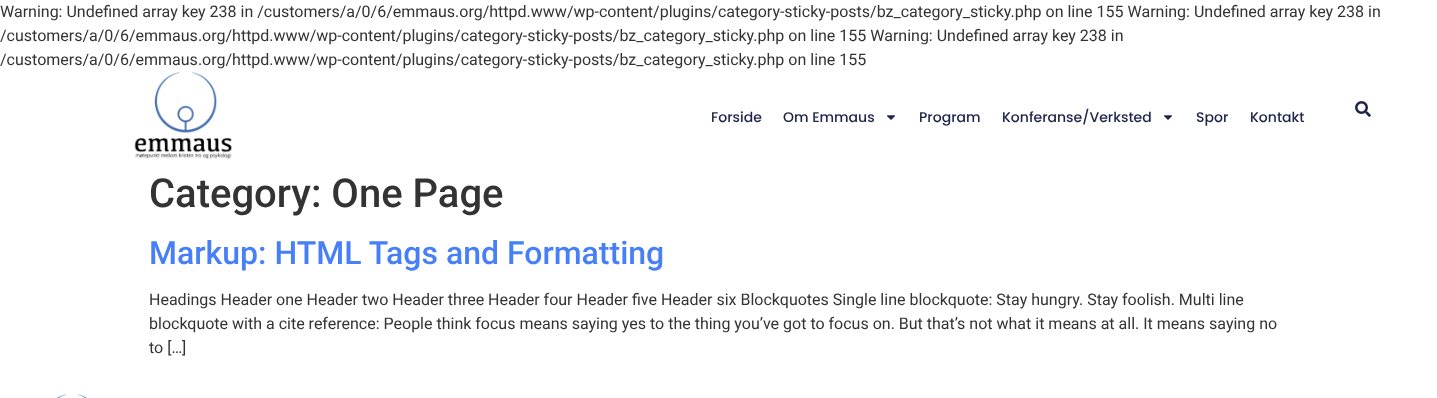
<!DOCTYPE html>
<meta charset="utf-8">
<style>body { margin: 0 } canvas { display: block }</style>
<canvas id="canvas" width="1437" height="398"></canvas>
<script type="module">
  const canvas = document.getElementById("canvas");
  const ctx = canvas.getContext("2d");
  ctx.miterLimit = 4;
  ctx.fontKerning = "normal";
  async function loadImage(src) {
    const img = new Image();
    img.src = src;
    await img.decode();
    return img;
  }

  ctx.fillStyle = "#ffffff";
  ctx.fillRect(0, 0, 1437, 398);
  ctx.font = "16px Roboto";
  ctx.fillStyle = "#333333";
  ctx.fillText("Warning: Undefined array key 238 in /customers/a/0/6/emmaus.org/httpd.www/wp-content/plugins/category-sticky-posts/bz_category_sticky.php on line 155 Warning: Undefined array key 238 in", 0, 17);
  ctx.fillText("/customers/a/0/6/emmaus.org/httpd.www/wp-content/plugins/category-sticky-posts/bz_category_sticky.php on line 155 Warning: Undefined array key 238 in", 0, 41);
  ctx.fillText("/customers/a/0/6/emmaus.org/httpd.www/wp-content/plugins/category-sticky-posts/bz_category_sticky.php on line 155", 0, 65);
  ctx.drawImage(await loadImage("img1.png"), 134, 72, 98, 87);
  ctx.font = "500 14px Poppins";
  ctx.fillStyle = "#1c244b";
  ctx.fillText("Forside", 711, 122);
  ctx.fillText("Om Emmaus", 783, 122);
  ctx.drawImage(await loadImage("img2.png"), 887, 115, 8, 5);
  ctx.fillText("Program", 919, 122);
  ctx.fillText("Konferanse/Verksted", 1002, 122);
  ctx.drawImage(await loadImage("img2.png"), 1164, 115, 8, 5);
  ctx.fillText("Spor", 1196, 122);
  ctx.fillText("Kontakt", 1250, 122);
  ctx.drawImage(await loadImage("img3.png"), 1355, 101, 16, 16);
  ctx.font = "500 40px Roboto";
  ctx.fillStyle = "#333333";
  ctx.fillText("Category: One Page", 149, 207);
  ctx.font = "500 32px Roboto";
  ctx.fillStyle = "#467ff7";
  ctx.fillText("Markup: HTML Tags and Formatting", 149, 264);
  ctx.font = "16px Roboto";
  ctx.fillStyle = "#333333";
  ctx.fillText("Headings Header one Header two Header three Header four Header five Header six Blockquotes Single line blockquote: Stay hungry. Stay foolish. Multi line", 149, 305);
  ctx.fillText("blockquote with a cite reference: People think focus means saying yes to the thing you’ve got to focus on. But that’s not what it means at all. It means saying no", 149, 329);
  ctx.fillText("to […]", 149, 353);
  ctx.drawImage(await loadImage("img4.png"), 56, 394, 31, 4);
</script>
